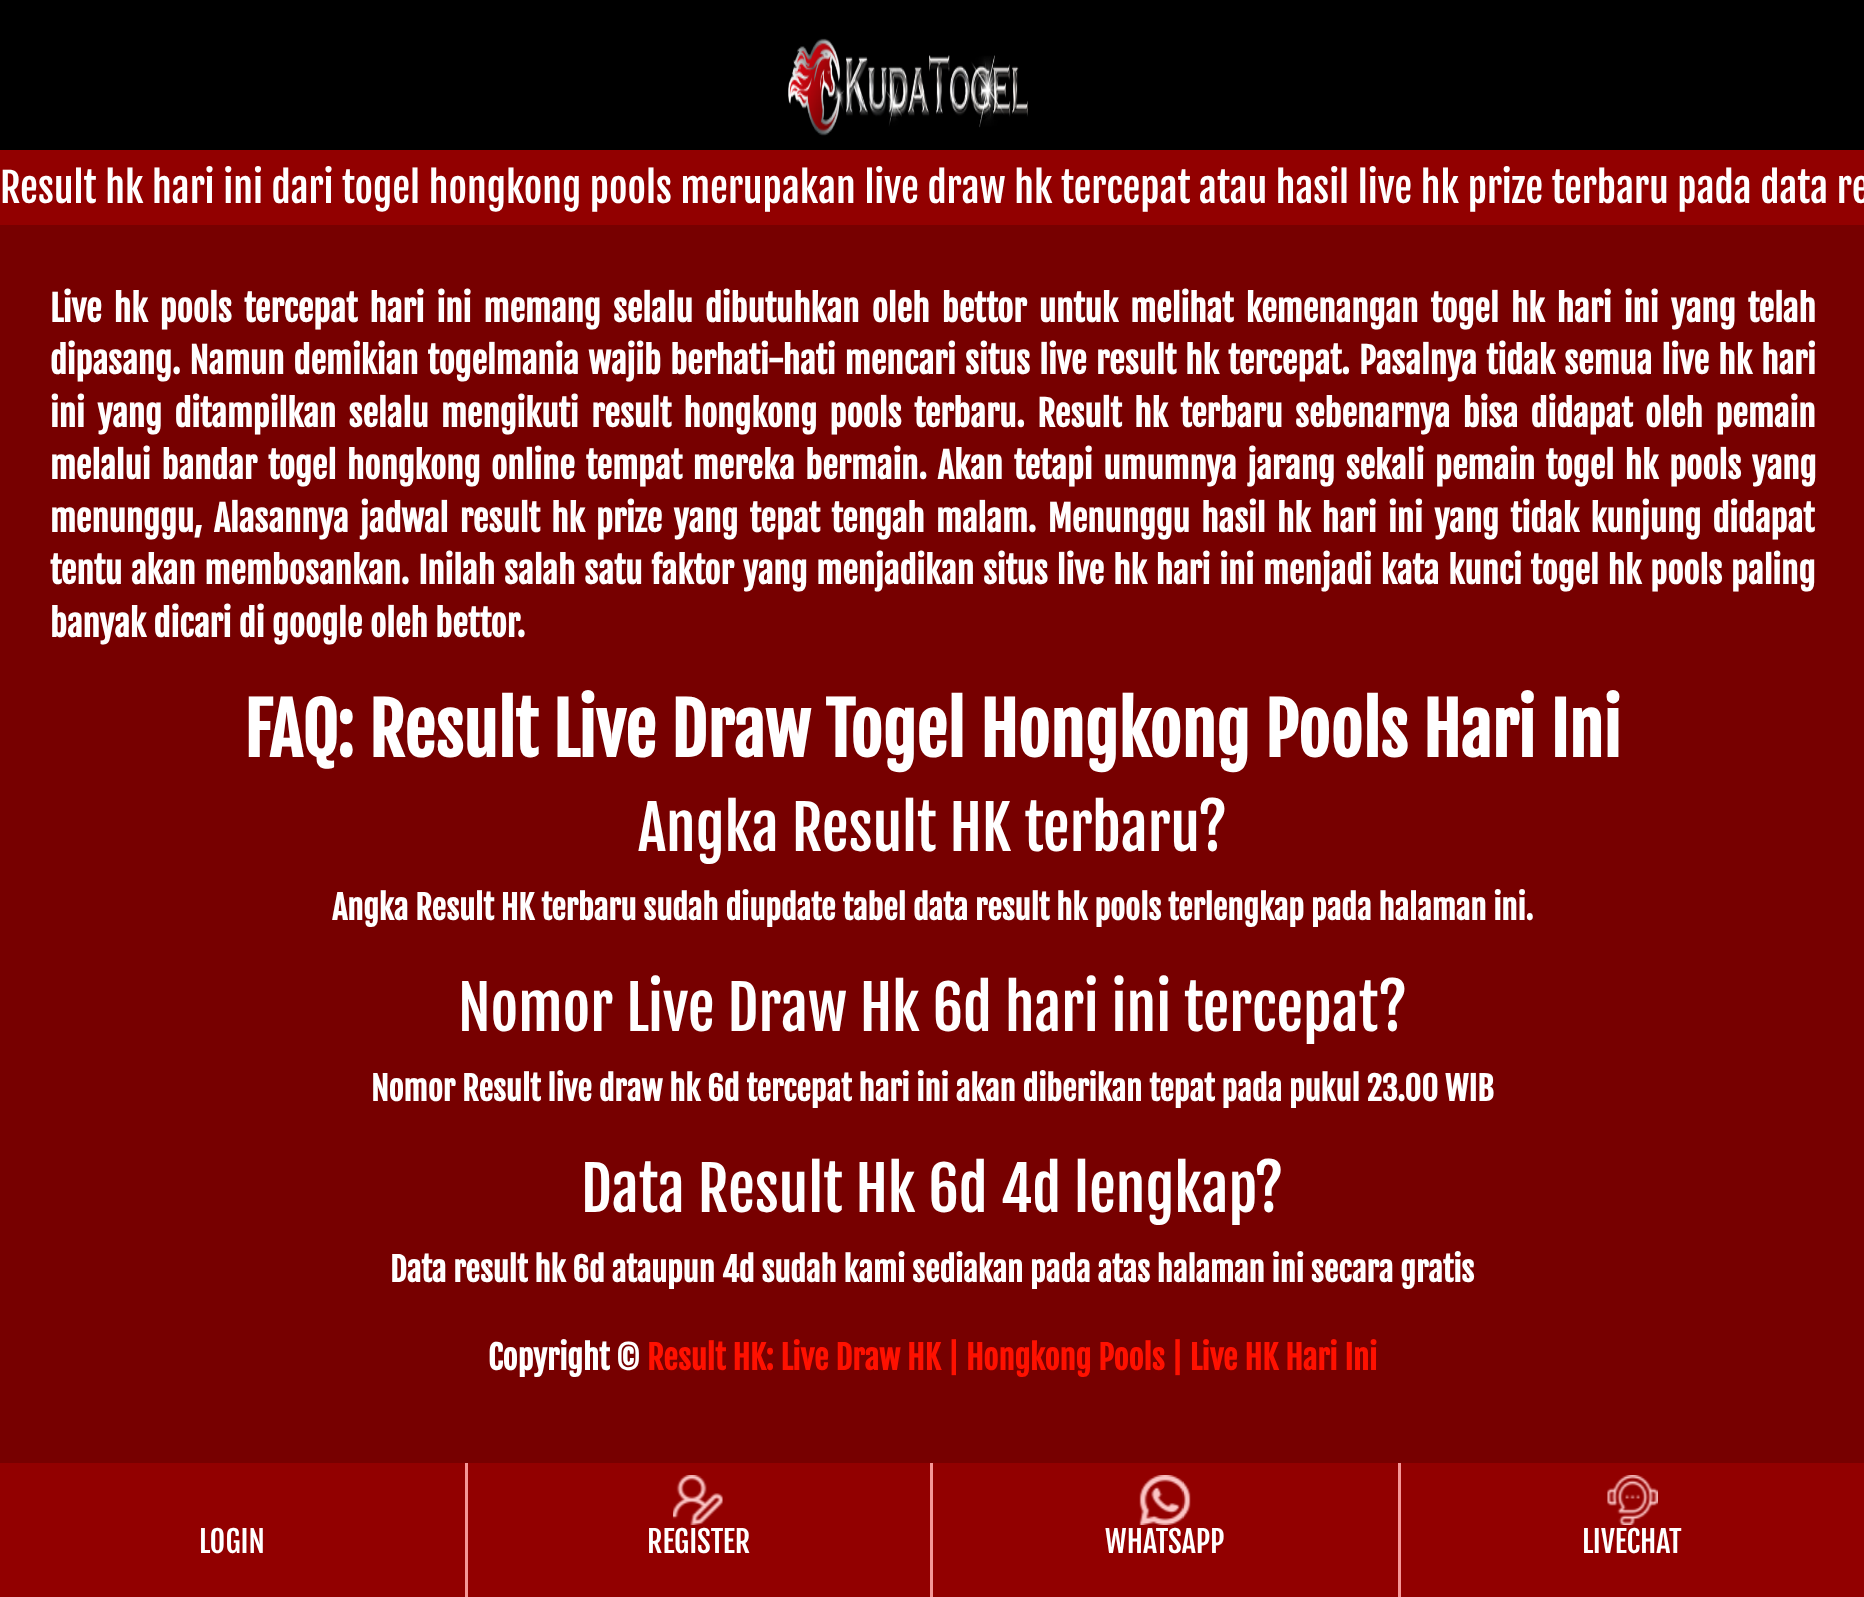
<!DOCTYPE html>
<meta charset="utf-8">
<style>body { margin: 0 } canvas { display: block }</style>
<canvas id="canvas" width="1864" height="1597"></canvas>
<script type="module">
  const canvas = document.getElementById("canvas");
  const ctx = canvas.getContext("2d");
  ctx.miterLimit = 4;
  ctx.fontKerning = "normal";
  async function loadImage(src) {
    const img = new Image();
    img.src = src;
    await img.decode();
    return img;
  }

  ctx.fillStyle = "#770000";
  ctx.fillRect(0, 0, 1864, 1597);
  ctx.fillStyle = "#000000";
  ctx.fillRect(0, 0, 1864, 150);
  ctx.drawImage(await loadImage("img1.png"), 788, 38, 240, 98);
  ctx.fillStyle = "#920000";
  ctx.fillRect(0, 150, 1864, 75);
  ctx.font = "40px Fjalla One";
  ctx.fillStyle = "#ffffff";
  ctx.fillText("Result hk hari ini dari togel hongkong pools merupakan live draw hk tercepat atau hasil live hk prize terbaru pada data re", 0, 203);
  ctx.wordSpacing = "4.75px";
  ctx.font = "bold 35px Fjalla One";
  ctx.fillText("Live hk pools", 50, 322);
  ctx.fillText("tercepat hari ini memang selalu dibutuhkan oleh bettor untuk melihat kemenangan togel hk hari ini yang telah", 244, 322);
  ctx.wordSpacing = "1.75px";
  ctx.fillText("dipasang. Namun demikian togelmania wajib berhati-hati mencari situs live result hk tercepat. Pasalnya tidak semua live hk hari", 50, 374);
  ctx.wordSpacing = "5px";
  ctx.fillText("ini yang ditampilkan selalu mengikuti result hongkong pools terbaru. Result hk terbaru sebenarnya bisa didapat oleh pemain", 50, 427);
  ctx.wordSpacing = "3.25px";
  ctx.fillText("melalui bandar togel hongkong online tempat mereka bermain. Akan tetapi umumnya jarang sekali pemain togel hk pools yang", 50, 479);
  ctx.wordSpacing = "3.9px";
  ctx.fillText("menunggu, Alasannya jadwal result hk prize yang tepat tengah malam. Menunggu hasil hk hari ini yang tidak kunjung didapat", 50, 532);
  ctx.wordSpacing = "1.4px";
  ctx.fillText("tentu akan membosankan. Inilah salah satu faktor yang menjadikan situs live hk hari ini menjadi kata kunci togel hk pools paling", 50, 584);
  ctx.wordSpacing = "0px";
  ctx.fillText("banyak dicari di google oleh bettor.", 50, 637);
  ctx.font = "bold 70px Fjalla One";
  ctx.fillText("FAQ: Result Live Draw Togel Hongkong Pools Hari Ini", 244, 757);
  ctx.font = "60px Fjalla One";
  ctx.fillText("Angka Result HK terbaru?", 638, 851);
  ctx.font = "bold 32.5px Fjalla One";
  ctx.fillText("Angka Result HK terbaru sudah diupdate tabel data result hk pools terlengkap pada halaman ini.", 332, 920);
  ctx.font = "60px Fjalla One";
  ctx.fillText("Nomor Live Draw Hk 6d hari ini tercepat?", 458, 1031);
  ctx.font = "bold 32.5px Fjalla One";
  ctx.fillText("Nomor Result live draw hk 6d tercepat hari ini akan diberikan tepat pada pukul 23.00 WIB", 371, 1101);
  ctx.font = "60px Fjalla One";
  ctx.fillText("Data Result Hk 6d 4d lengkap?", 581, 1212);
  ctx.font = "bold 32.5px Fjalla One";
  ctx.fillText("Data result hk 6d ataupun 4d sudah kami sediakan pada atas halaman ini secara gratis", 390, 1282);
  ctx.fillText("Copyright ©", 488, 1370);
  ctx.fillStyle = "#ff1100";
  ctx.fillText("Result HK: Live Draw HK | Hongkong Pools | Live HK Hari Ini", 647, 1370);
  ctx.fillStyle = "#920000";
  ctx.fillRect(0, 1463, 1864, 134);
  ctx.fillStyle = "#f59696";
  ctx.fillRect(465, 1463, 3, 134);
  ctx.font = "30px Fjalla One";
  ctx.fillStyle = "#ffffff";
  ctx.fillText("LOGIN", 199, 1553);
  ctx.fillStyle = "#f59696";
  ctx.fillRect(930, 1463, 3, 134);
  ctx.drawImage(await loadImage("img2.png"), 673, 1475, 50, 50);
  ctx.fillStyle = "#ffffff";
  ctx.fillText("REGISTER", 647, 1553);
  ctx.fillStyle = "#f59696";
  ctx.fillRect(1398, 1463, 3, 134);
  ctx.drawImage(await loadImage("img3.png"), 1139, 1475, 52, 50);
  ctx.fillStyle = "#ffffff";
  ctx.fillText("WHATSAPP", 1105, 1553);
  ctx.drawImage(await loadImage("img4.png"), 1607, 1475, 51, 50);
  ctx.fillText("LIVECHAT", 1582, 1553);
</script>
